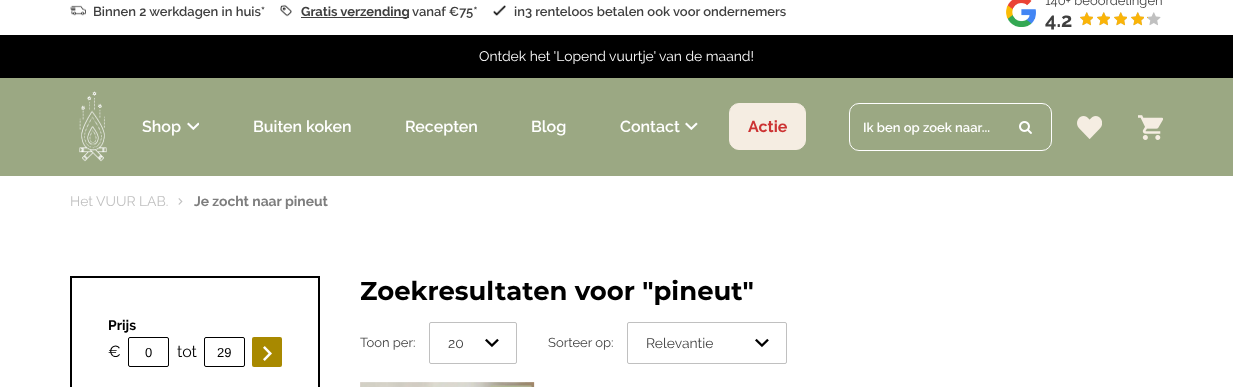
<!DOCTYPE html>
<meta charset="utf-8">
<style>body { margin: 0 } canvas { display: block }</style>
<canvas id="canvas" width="1233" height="387"></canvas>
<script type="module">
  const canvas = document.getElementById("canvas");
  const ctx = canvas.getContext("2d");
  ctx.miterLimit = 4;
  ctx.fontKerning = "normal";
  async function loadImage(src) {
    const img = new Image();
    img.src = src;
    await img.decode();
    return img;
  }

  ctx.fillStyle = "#ffffff";
  ctx.fillRect(0, 0, 1233, 387);
  ctx.drawImage(await loadImage("img1.png"), 70, 5, 16, 11);
  ctx.font = "600 13px Raleway";
  ctx.fillStyle = "#3f3f3f";
  ctx.fillText("Binnen 2 werkdagen in huis*", 93, 16);
  ctx.drawImage(await loadImage("img2.png"), 280, 4, 12, 13);
  ctx.fillRect(301, 17, 108, 1);
  ctx.font = "bold 13px Raleway";
  ctx.fillText("Gratis verzending", 301, 16);
  ctx.font = "600 13px Raleway";
  ctx.fillText("vanaf €75*", 412, 16);
  ctx.drawImage(await loadImage("img3.png"), 493, 5, 13, 11);
  ctx.fillText("in3 renteloos betalen ook voor ondernemers", 514, 16);
  ctx.drawImage(await loadImage("img4.png"), 1006, 0, 30, 27);
  ctx.font = "13px Raleway";
  ctx.fillText("140+ beoordelingen", 1045, 5);
  ctx.font = "bold 20px Raleway";
  ctx.fillText("4.2", 1045, 27);
  ctx.drawImage(await loadImage("img5.png"), 1080, 12, 13, 14);
  ctx.drawImage(await loadImage("img5.png"), 1097, 12, 13, 14);
  ctx.drawImage(await loadImage("img5.png"), 1114, 12, 13, 14);
  ctx.drawImage(await loadImage("img5.png"), 1131, 12, 13, 14);
  ctx.drawImage(await loadImage("img6.png"), 1147, 12, 14, 14);
  ctx.drawImage(await loadImage("img7.png"), 1080, 12, 13, 14);
  ctx.drawImage(await loadImage("img7.png"), 1097, 12, 13, 14);
  ctx.drawImage(await loadImage("img7.png"), 1114, 12, 13, 14);
  ctx.drawImage(await loadImage("img7.png"), 1131, 12, 13, 14);
  ctx.drawImage(await loadImage("img8.png"), 1147, 16, 1, 3);
  ctx.fillStyle = "#000000";
  ctx.fillRect(0, 35, 1233, 43);
  ctx.font = "13.9px Raleway";
  ctx.fillStyle = "#ffffff";
  ctx.fillText("Ontdek het 'Lopend vuurtje' van de maand!", 479, 61);
  ctx.fillStyle = "#9ba883";
  ctx.fillRect(0, 78, 1233, 98);
  ctx.drawImage(await loadImage("img9.png"), 79, 91, 28, 71);
  ctx.font = "600 16px Raleway";
  ctx.fillStyle = "#ffffff";
  ctx.fillText("Shop", 142, 132);
  ctx.drawImage(await loadImage("img10.png"), 187, 122, 12, 8);
  ctx.fillText("Buiten koken", 253, 132);
  ctx.fillText("Recepten", 405, 132);
  ctx.fillText("Blog", 531, 132);
  ctx.fillText("Contact", 620, 132);
  ctx.drawImage(await loadImage("img11.png"), 685, 122, 13, 8);
  ctx.fillStyle = "#f5ede2";
  ctx.beginPath();
  ctx.roundRect(729.5, 103.5, 76, 46, 9.5);
  ctx.fill();
  ctx.strokeStyle = "#f5ede2";
  ctx.stroke();
  ctx.font = "bold 16px Raleway";
  ctx.fillStyle = "#cc3333";
  ctx.fillText("Actie", 748, 132);
  ctx.beginPath();
  ctx.roundRect(849.5, 103.5, 202, 47, 9.5);
  ctx.strokeStyle = "#ffffff";
  ctx.stroke();
  ctx.font = "600 13px Raleway";
  ctx.fillStyle = "#ffffff";
  ctx.fillText("Ik ben op zoek naar...", 863, 132);
  ctx.drawImage(await loadImage("img12.png"), 1019, 121, 13, 13);
  ctx.drawImage(await loadImage("img13.png"), 1077, 116, 25, 23);
  ctx.drawImage(await loadImage("img14.png"), 1138, 115, 25, 25);
  ctx.font = "13.9px Raleway";
  ctx.fillStyle = "#c0c0c0";
  ctx.fillText("Het VUUR LAB.", 70, 206);
  ctx.drawImage(await loadImage("img15.png"), 178, 198, 5, 7);
  ctx.font = "bold 13.9px Raleway";
  ctx.fillStyle = "#7e7e7e";
  ctx.fillText("Je zocht naar pineut", 194, 206);
  ctx.beginPath();
  ctx.moveTo(71, 277);
  ctx.lineTo(319, 277);
  ctx.lineTo(319, 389);
  ctx.bezierCurveTo(319, 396.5, 312.5, 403, 305, 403);
  ctx.lineTo(71, 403);
  ctx.closePath();
  ctx.strokeStyle = "#000000";
  ctx.lineWidth = 2;
  ctx.stroke();
  ctx.fillStyle = "#000000";
  ctx.fillText("Prijs", 108, 330);
  ctx.font = "16px Raleway";
  ctx.fillText("€", 108, 357);
  ctx.beginPath();
  ctx.roundRect(128.5, 337.5, 40, 29, 1.5);
  ctx.lineWidth = 1;
  ctx.stroke();
  ctx.font = "13px Liberation Sans";
  ctx.fillText("0", 145, 357);
  ctx.font = "16px Raleway";
  ctx.fillText("tot", 177, 357);
  ctx.beginPath();
  ctx.roundRect(204.5, 337.5, 40, 29, 1.5);
  ctx.stroke();
  ctx.font = "13px Liberation Sans";
  ctx.fillText("29", 217, 357);
  ctx.fillStyle = "#a88900";
  ctx.beginPath();
  ctx.roundRect(252, 337, 30, 30, 2);
  ctx.fill();
  ctx.drawImage(await loadImage("img16.png"), 263, 346, 9, 15);
  ctx.font = "bold 25.9px Montserrat";
  ctx.fillStyle = "#000000";
  ctx.fillText("Zoekresultaten voor \"pineut\"", 360, 300);
  ctx.font = "13px Raleway";
  ctx.fillStyle = "#3f3f3f";
  ctx.fillText("Toon per:", 360, 347);
  ctx.drawImage(await loadImage("img17.png"), 485, 338, 14, 10);
  ctx.beginPath();
  ctx.roundRect(429.5, 322.5, 87, 41, 1.5);
  ctx.strokeStyle = "#c0c0c0";
  ctx.stroke();
  ctx.font = "13.9px Raleway";
  ctx.fillText("20", 448, 348);
  ctx.font = "13px Raleway";
  ctx.fillText("Sorteer op:", 548, 347);
  ctx.drawImage(await loadImage("img17.png"), 755, 338, 14, 10);
  ctx.beginPath();
  ctx.roundRect(627.5, 322.5, 159, 41, 1.5);
  ctx.stroke();
  ctx.font = "13.9px Raleway";
  ctx.fillText("Relevantie", 646, 348);
  ctx.drawImage(await loadImage("img18.png"), 360, 382, 175, 5);
</script>
